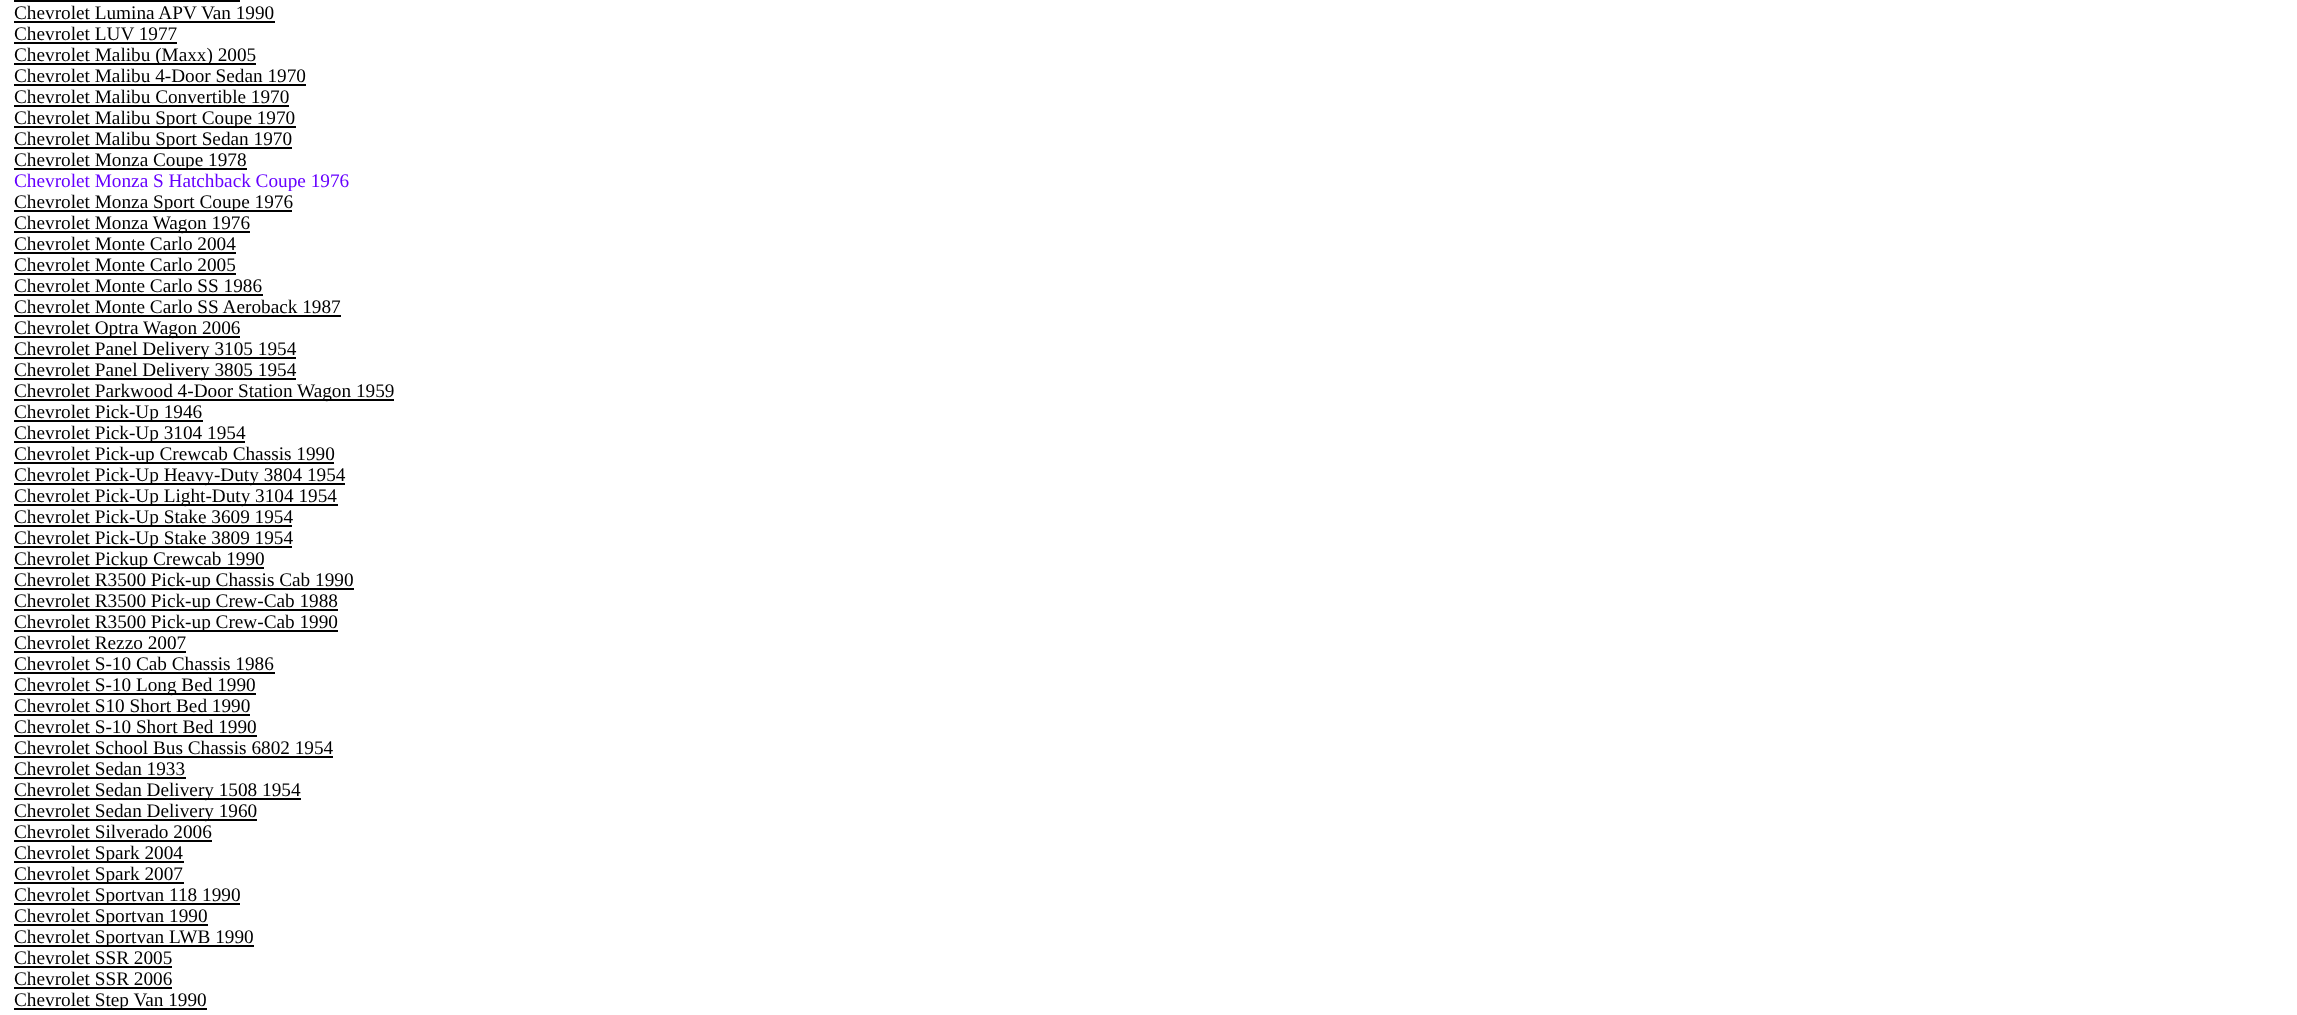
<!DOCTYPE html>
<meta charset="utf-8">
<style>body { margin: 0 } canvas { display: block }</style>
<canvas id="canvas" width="2297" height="1015"></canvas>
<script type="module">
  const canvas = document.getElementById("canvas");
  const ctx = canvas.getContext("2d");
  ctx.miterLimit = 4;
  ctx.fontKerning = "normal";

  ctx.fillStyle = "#ffffff";
  ctx.fillRect(0, 0, 2297, 1015);
  ctx.fillStyle = "#000000";
  ctx.fillRect(14, 0, 226, 2);
  ctx.font = "19.25px Liberation Serif";
  ctx.fillText("Chevrolet Lumina APV Van 1990", 14, 19);
  ctx.fillRect(14, 21, 261, 2);
  ctx.fillText("Chevrolet LUV 1977", 14, 40);
  ctx.fillRect(14, 42, 163, 2);
  ctx.fillRect(14, 63, 242, 2);
  ctx.fillText("Chevrolet Malibu (Maxx) 2005", 14, 61);
  ctx.fillText("Chevrolet Malibu 4-Door Sedan 1970", 14, 82);
  ctx.fillRect(14, 84, 292, 2);
  ctx.fillText("Chevrolet Malibu Convertible 1970", 14, 103);
  ctx.fillRect(14, 105, 275, 2);
  ctx.fillRect(14, 126, 282, 2);
  ctx.fillText("Chevrolet Malibu Sport Coupe 1970", 14, 124);
  ctx.fillRect(14, 147, 278, 2);
  ctx.fillText("Chevrolet Malibu Sport Sedan 1970", 14, 145);
  ctx.fillRect(14, 168, 233, 2);
  ctx.fillText("Chevrolet Monza Coupe 1978", 14, 166);
  ctx.fillStyle = "#6600ff";
  ctx.fillText("Chevrolet Monza S Hatchback Coupe 1976", 14, 187);
  ctx.fillStyle = "#000000";
  ctx.fillRect(14, 210, 278, 2);
  ctx.fillText("Chevrolet Monza Sport Coupe 1976", 14, 208);
  ctx.fillRect(14, 231, 236, 2);
  ctx.fillText("Chevrolet Monza Wagon 1976", 14, 229);
  ctx.fillText("Chevrolet Monte Carlo 2004", 14, 250);
  ctx.fillRect(14, 252, 222, 2);
  ctx.fillText("Chevrolet Monte Carlo 2005", 14, 271);
  ctx.fillRect(14, 273, 222, 2);
  ctx.fillText("Chevrolet Monte Carlo SS 1986", 14, 292);
  ctx.fillRect(14, 294, 249, 2);
  ctx.fillText("Chevrolet Monte Carlo SS Aeroback 1987", 14, 313);
  ctx.fillRect(14, 315, 327, 2);
  ctx.fillRect(14, 336, 226, 2);
  ctx.fillText("Chevrolet Optra Wagon 2006", 14, 334);
  ctx.fillRect(14, 357, 282, 2);
  ctx.fillText("Chevrolet Panel Delivery 3105 1954", 14, 355);
  ctx.fillRect(14, 378, 282, 2);
  ctx.fillText("Chevrolet Panel Delivery 3805 1954", 14, 376);
  ctx.fillRect(14, 399, 380, 2);
  ctx.fillText("Chevrolet Parkwood 4-Door Station Wagon 1959", 14, 397);
  ctx.fillRect(14, 420, 189, 2);
  ctx.fillText("Chevrolet Pick-Up 1946", 14, 418);
  ctx.fillRect(14, 441, 231, 2);
  ctx.fillText("Chevrolet Pick-Up 3104 1954", 14, 439);
  ctx.fillRect(14, 462, 320, 2);
  ctx.fillText("Chevrolet Pick-up Crewcab Chassis 1990", 14, 460);
  ctx.fillRect(14, 483, 331, 2);
  ctx.fillText("Chevrolet Pick-Up Heavy-Duty 3804 1954", 14, 481);
  ctx.fillRect(14, 504, 324, 2);
  ctx.fillText("Chevrolet Pick-Up Light-Duty 3104 1954", 14, 502);
  ctx.fillRect(14, 525, 278, 2);
  ctx.fillText("Chevrolet Pick-Up Stake 3609 1954", 14, 523);
  ctx.fillRect(14, 546, 278, 2);
  ctx.fillText("Chevrolet Pick-Up Stake 3809 1954", 14, 544);
  ctx.fillRect(14, 567, 250, 2);
  ctx.fillText("Chevrolet Pickup Crewcab 1990", 14, 565);
  ctx.fillRect(14, 588, 340, 2);
  ctx.fillText("Chevrolet R3500 Pick-up Chassis Cab 1990", 14, 586);
  ctx.fillRect(14, 609, 324, 2);
  ctx.fillText("Chevrolet R3500 Pick-up Crew-Cab 1988", 14, 607);
  ctx.fillRect(14, 630, 324, 2);
  ctx.fillText("Chevrolet R3500 Pick-up Crew-Cab 1990", 14, 628);
  ctx.fillText("Chevrolet Rezzo 2007", 14, 649);
  ctx.fillRect(14, 651, 172, 2);
  ctx.fillText("Chevrolet S-10 Cab Chassis 1986", 14, 670);
  ctx.fillRect(14, 672, 261, 2);
  ctx.fillRect(14, 693, 242, 2);
  ctx.fillText("Chevrolet S-10 Long Bed 1990", 14, 691);
  ctx.fillText("Chevrolet S10 Short Bed 1990", 14, 712);
  ctx.fillRect(14, 714, 236, 2);
  ctx.fillText("Chevrolet S-10 Short Bed 1990", 14, 733);
  ctx.fillRect(14, 735, 243, 2);
  ctx.fillText("Chevrolet School Bus Chassis 6802 1954", 14, 754);
  ctx.fillRect(14, 756, 319, 2);
  ctx.fillText("Chevrolet Sedan 1933", 14, 775);
  ctx.fillRect(14, 777, 172, 2);
  ctx.fillRect(14, 798, 287, 2);
  ctx.fillText("Chevrolet Sedan Delivery 1508 1954", 14, 796);
  ctx.fillRect(14, 819, 243, 2);
  ctx.fillText("Chevrolet Sedan Delivery 1960", 14, 817);
  ctx.fillText("Chevrolet Silverado 2006", 14, 838);
  ctx.fillRect(14, 840, 198, 2);
  ctx.fillRect(14, 861, 170, 2);
  ctx.fillText("Chevrolet Spark 2004", 14, 859);
  ctx.fillRect(14, 882, 170, 2);
  ctx.fillText("Chevrolet Spark 2007", 14, 880);
  ctx.fillRect(14, 903, 226, 2);
  ctx.fillText("Chevrolet Sportvan 118 1990", 14, 901);
  ctx.fillRect(14, 924, 194, 2);
  ctx.fillText("Chevrolet Sportvan 1990", 14, 922);
  ctx.fillRect(14, 945, 240, 2);
  ctx.fillText("Chevrolet Sportvan LWB 1990", 14, 943);
  ctx.fillText("Chevrolet SSR 2005", 14, 964);
  ctx.fillRect(14, 966, 158, 2);
  ctx.fillText("Chevrolet SSR 2006", 14, 985);
  ctx.fillRect(14, 987, 158, 2);
  ctx.fillRect(14, 1008, 193, 2);
  ctx.fillText("Chevrolet Step Van 1990", 14, 1006);
</script>
